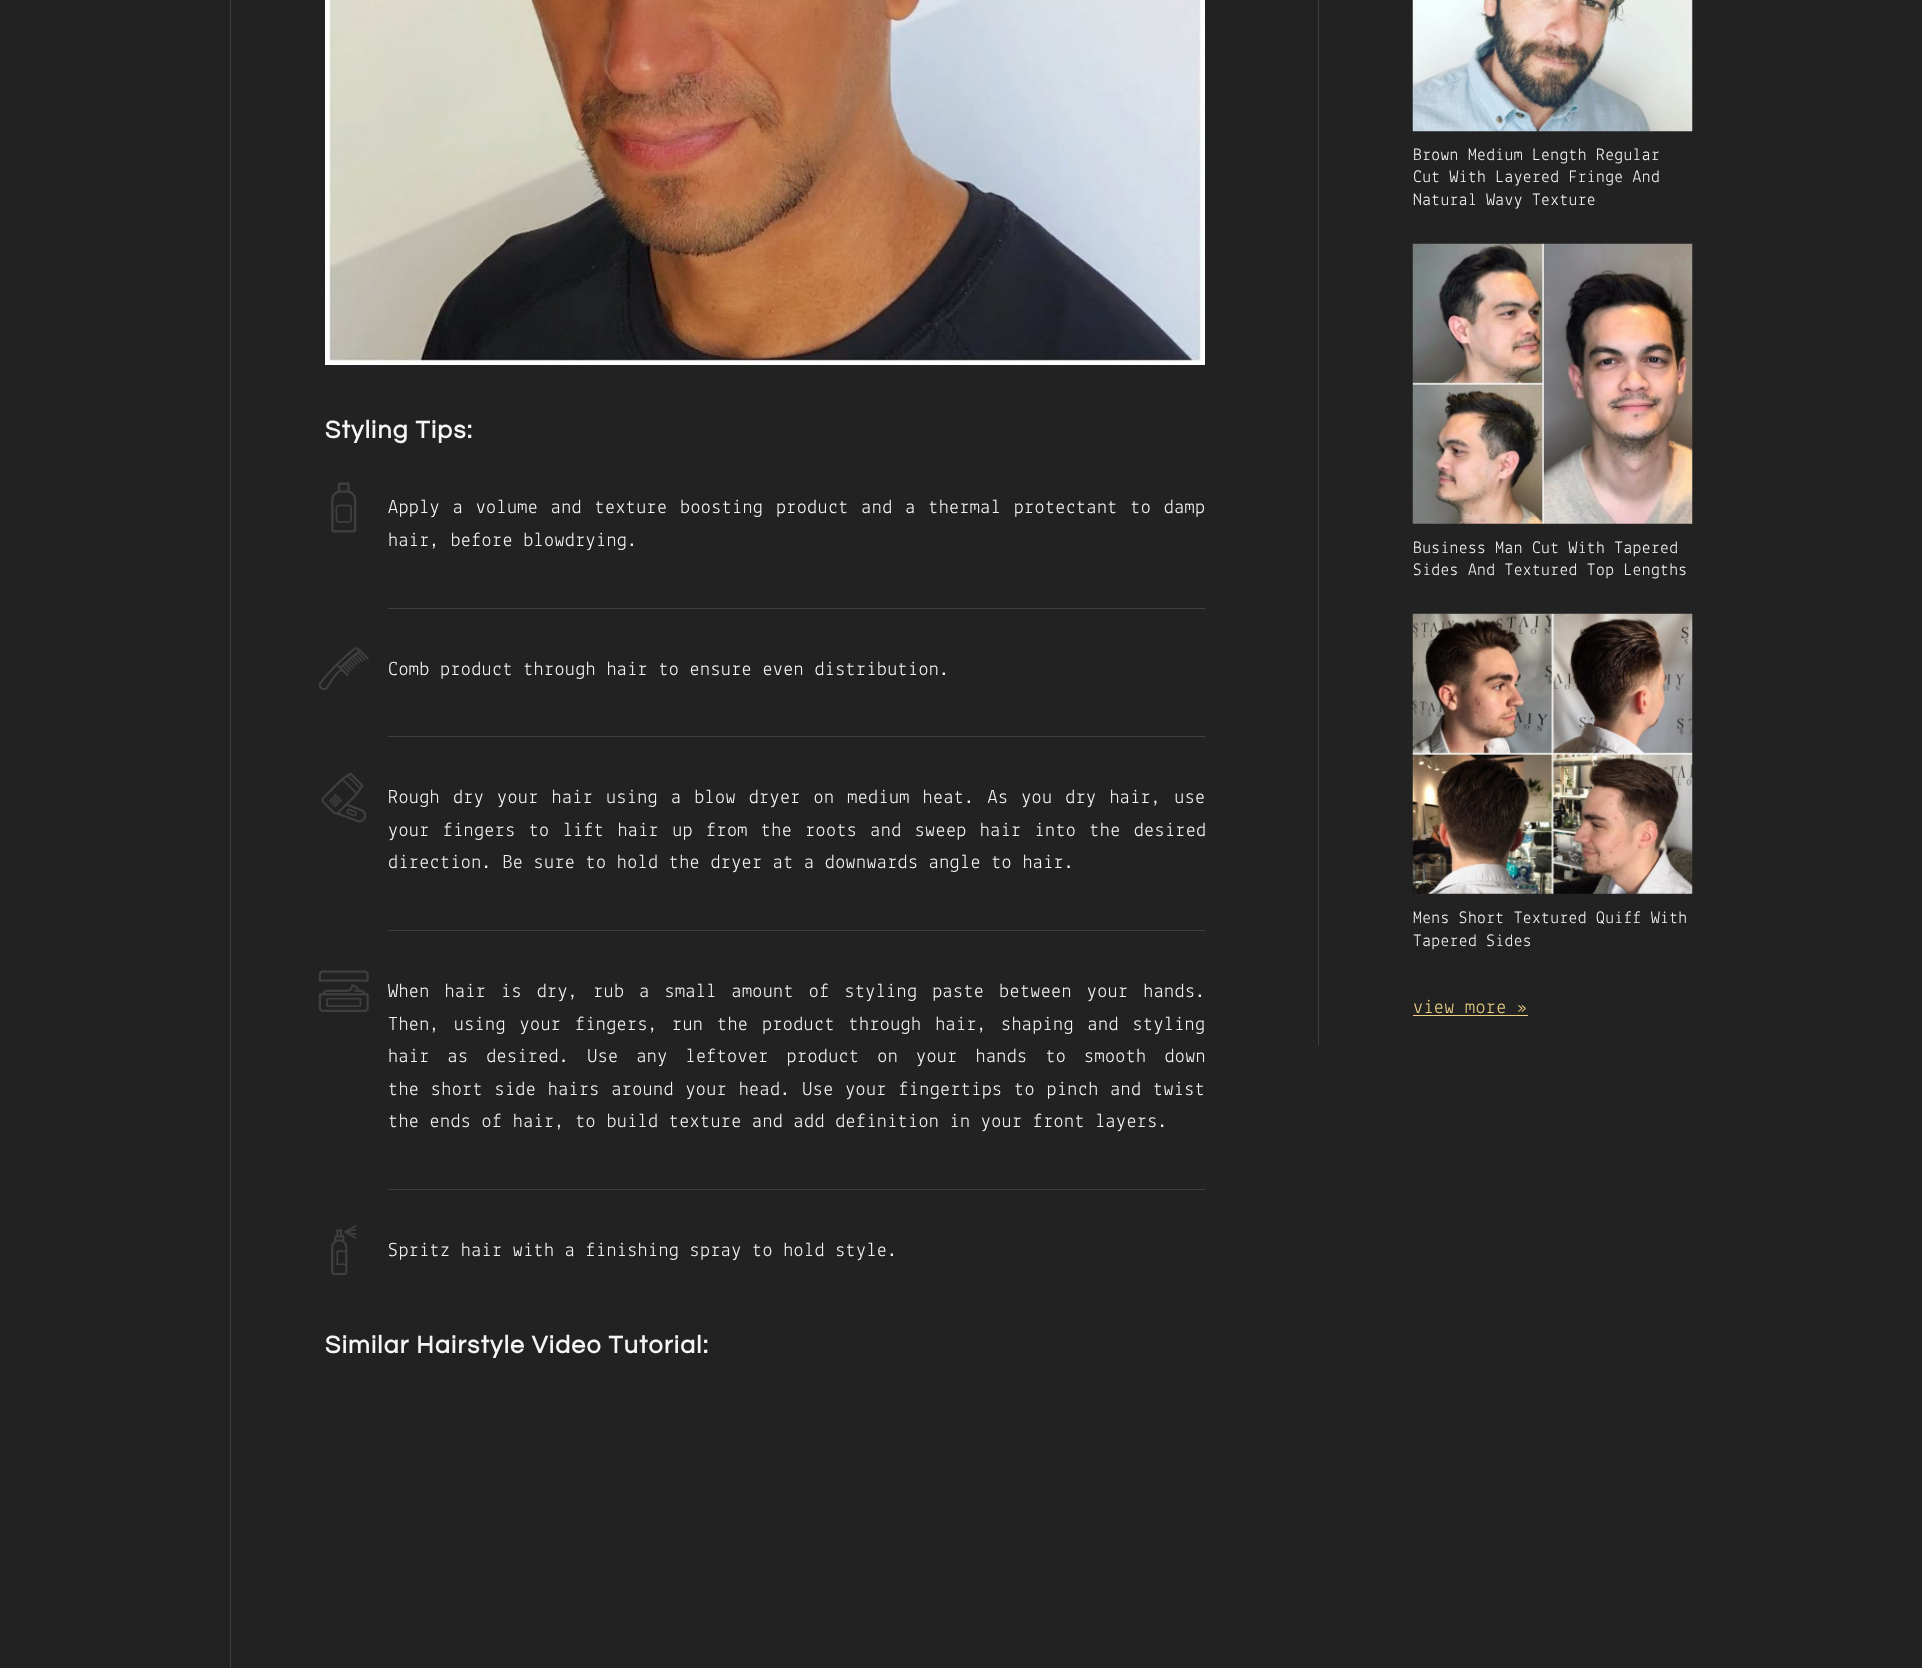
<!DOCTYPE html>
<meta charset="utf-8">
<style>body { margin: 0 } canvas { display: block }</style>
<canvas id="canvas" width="1922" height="1668"></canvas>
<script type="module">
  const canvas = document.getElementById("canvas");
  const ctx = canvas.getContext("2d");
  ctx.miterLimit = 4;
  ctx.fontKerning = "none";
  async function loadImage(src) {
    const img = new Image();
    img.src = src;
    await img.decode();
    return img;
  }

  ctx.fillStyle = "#222222";
  ctx.fillRect(0, 0, 1922, 1668);
  ctx.fillStyle = "#3f3f3f";
  ctx.fillRect(230, 0, 1, 1668);
  ctx.drawImage(await loadImage("img1.png"), 325, 0, 880, 365);
  ctx.letterSpacing = "1.25px";
  ctx.font = "bold 25px Questrial";
  ctx.fillStyle = "#f5f5f5";
  ctx.fillText("Styling Tips:", 325, 438);
  ctx.fillStyle = "#3f3f3f";
  ctx.fillRect(388, 608, 817, 1);
  ctx.drawImage(await loadImage("img2.png"), 331, 482, 26, 51);
  ctx.letterSpacing = "0.4px";
  ctx.wordSpacing = "2.25px";
  ctx.font = "20px Lekton";
  ctx.fillStyle = "#f5f5f5";
  ctx.fillText("Apply a volume and texture boosting product and a thermal protectant to damp", 388, 513);
  ctx.wordSpacing = "0px";
  ctx.fillText("hair, before blowdrying.", 388, 546);
  ctx.fillStyle = "#3f3f3f";
  ctx.fillRect(388, 736, 817, 1);
  ctx.drawImage(await loadImage("img3.png"), 318, 647, 51, 43);
  ctx.fillStyle = "#f5f5f5";
  ctx.fillText("Comb product through hair to ensure even distribution.", 388, 675);
  ctx.fillStyle = "#3f3f3f";
  ctx.fillRect(388, 930, 817, 1);
  ctx.drawImage(await loadImage("img4.png"), 321, 772, 45, 51);
  ctx.wordSpacing = "2.5px";
  ctx.fillStyle = "#f5f5f5";
  ctx.fillText("Rough dry your hair using a blow dryer on medium heat. As you dry hair, use", 388, 803);
  ctx.wordSpacing = "2.75px";
  ctx.fillText("your fingers to lift hair up from the roots and sweep hair into the desired", 388, 836);
  ctx.wordSpacing = "0px";
  ctx.fillText("direction. Be sure to hold the dryer at a downwards angle to hair.", 388, 868);
  ctx.fillStyle = "#3f3f3f";
  ctx.fillRect(388, 1189, 817, 1);
  ctx.drawImage(await loadImage("img5.png"), 318, 970, 51, 42);
  ctx.wordSpacing = "4.5px";
  ctx.fillStyle = "#f5f5f5";
  ctx.fillText("When hair is dry, rub a small amount of styling paste between your hands.", 388, 997);
  ctx.wordSpacing = "3.4px";
  ctx.fillText("Then, using your fingers, run the product through hair, shaping and styling", 388, 1030);
  ctx.wordSpacing = "7.5px";
  ctx.fillText("hair as desired. Use any leftover product on your hands to smooth down", 388, 1062);
  ctx.wordSpacing = "1.25px";
  ctx.fillText("the short side hairs around your head. Use your fingertips to pinch and twist", 388, 1095);
  ctx.wordSpacing = "0px";
  ctx.fillText("the ends of hair, to build texture and add definition in your front layers.", 388, 1127);
  ctx.drawImage(await loadImage("img6.png"), 331, 1225, 26, 50);
  ctx.fillText("Spritz hair with a finishing spray to hold style.", 388, 1256);
  ctx.letterSpacing = "1.25px";
  ctx.font = "bold 25px Questrial";
  ctx.fillText("Similar Hairstyle Video Tutorial:", 325, 1353);
  ctx.fillStyle = "#3f3f3f";
  ctx.fillRect(1318, 0, 1, 1045);
  ctx.drawImage(await loadImage("img7.png"), 1412, 0, 281, 132);
  ctx.letterSpacing = "0.4px";
  ctx.font = "17.5px Lekton";
  ctx.fillStyle = "#f5f5f5";
  ctx.fillText("Brown Medium Length Regular", 1413, 160);
  ctx.fillText("Cut With Layered Fringe And", 1413, 182);
  ctx.fillText("Natural Wavy Texture", 1413, 205);
  ctx.drawImage(await loadImage("img8.png"), 1412, 243, 281, 281);
  ctx.fillText("Business Man Cut With Tapered", 1413, 553);
  ctx.fillText("Sides And Textured Top Lengths", 1413, 575);
  ctx.drawImage(await loadImage("img9.png"), 1412, 613, 281, 281);
  ctx.fillText("Mens Short Textured Quiff With", 1413, 923);
  ctx.fillText("Tapered Sides", 1413, 946);
  ctx.font = "20px Lekton";
  ctx.fillStyle = "#ebd084";
  ctx.fillText("view more »", 1413, 1013);
  ctx.fillRect(1413, 1015, 115, 1);
</script>
